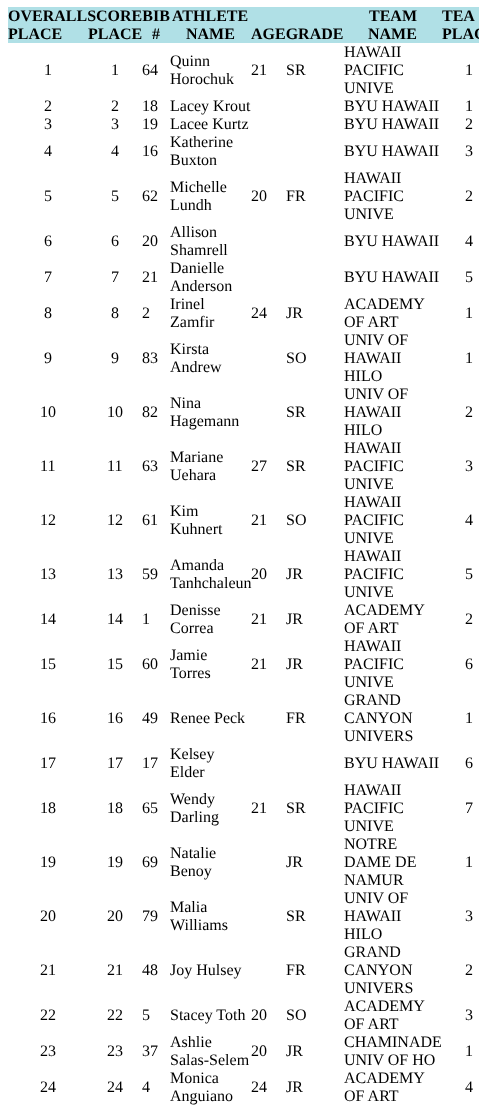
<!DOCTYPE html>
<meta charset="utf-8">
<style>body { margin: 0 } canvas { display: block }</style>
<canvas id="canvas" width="479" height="1111"></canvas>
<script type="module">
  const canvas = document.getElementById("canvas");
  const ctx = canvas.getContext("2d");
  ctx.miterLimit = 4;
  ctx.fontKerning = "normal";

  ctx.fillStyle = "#ffffff";
  ctx.fillRect(0, 0, 479, 1111);
  ctx.fillStyle = "#b0e0e6";
  ctx.fillRect(8, 7, 471, 36);
  ctx.font = "bold 16px Liberation Serif";
  ctx.fillStyle = "#000000";
  ctx.fillText("OVERALLSCOREBIB", 8, 21);
  ctx.fillText("ATHLETE", 172, 21);
  ctx.fillText("TEAM", 369, 21);
  ctx.fillText("TEA", 442, 21);
  ctx.fillText("PLACE", 8, 39);
  ctx.fillText("PLACE", 88, 39);
  ctx.fillText("#", 152, 39);
  ctx.fillText("NAME", 186, 39);
  ctx.fillText("AGEGRADE", 251, 39);
  ctx.fillText("NAME", 368, 39);
  ctx.fillText("PLAC", 442, 39);
  ctx.font = "16px Liberation Serif";
  ctx.fillText("1", 44, 75);
  ctx.fillText("1", 111, 75);
  ctx.fillText("64", 142, 75);
  ctx.fillText("Quinn", 170, 66);
  ctx.fillText("Horochuk", 170, 84);
  ctx.fillText("21", 251, 75);
  ctx.fillText("SR", 286, 75);
  ctx.fillText("HAWAII", 344, 57);
  ctx.fillText("PACIFIC", 344, 75);
  ctx.fillText("UNIVE", 344, 93);
  ctx.fillText("1", 465, 75);
  ctx.fillText("2", 44, 111);
  ctx.fillText("2", 111, 111);
  ctx.fillText("18", 142, 111);
  ctx.fillText("Lacey Krout", 170, 111);
  ctx.fillText("BYU HAWAII", 344, 111);
  ctx.fillText("1", 465, 111);
  ctx.fillText("3", 44, 129);
  ctx.fillText("3", 111, 129);
  ctx.fillText("19", 142, 129);
  ctx.fillText("Lacee Kurtz", 170, 129);
  ctx.fillText("BYU HAWAII", 344, 129);
  ctx.fillText("2", 465, 129);
  ctx.fillText("4", 44, 156);
  ctx.fillText("4", 111, 156);
  ctx.fillText("16", 142, 156);
  ctx.fillText("Katherine", 170, 147);
  ctx.fillText("Buxton", 170, 165);
  ctx.fillText("BYU HAWAII", 344, 156);
  ctx.fillText("3", 465, 156);
  ctx.fillText("5", 44, 201);
  ctx.fillText("5", 111, 201);
  ctx.fillText("62", 142, 201);
  ctx.fillText("Michelle", 170, 192);
  ctx.fillText("Lundh", 170, 210);
  ctx.fillText("20", 251, 201);
  ctx.fillText("FR", 286, 201);
  ctx.fillText("HAWAII", 344, 183);
  ctx.fillText("PACIFIC", 344, 201);
  ctx.fillText("UNIVE", 344, 219);
  ctx.fillText("2", 465, 201);
  ctx.fillText("6", 44, 246);
  ctx.fillText("6", 111, 246);
  ctx.fillText("20", 142, 246);
  ctx.fillText("Allison", 170, 237);
  ctx.fillText("Shamrell", 170, 255);
  ctx.fillText("BYU HAWAII", 344, 246);
  ctx.fillText("4", 465, 246);
  ctx.fillText("7", 44, 282);
  ctx.fillText("7", 111, 282);
  ctx.fillText("21", 142, 282);
  ctx.fillText("Danielle", 170, 273);
  ctx.fillText("Anderson", 170, 291);
  ctx.fillText("BYU HAWAII", 344, 282);
  ctx.fillText("5", 465, 282);
  ctx.fillText("8", 44, 318);
  ctx.fillText("8", 111, 318);
  ctx.fillText("2", 142, 318);
  ctx.fillText("Irinel", 170, 309);
  ctx.fillText("Zamfir", 170, 327);
  ctx.fillText("24", 251, 318);
  ctx.fillText("JR", 286, 318);
  ctx.fillText("ACADEMY", 344, 309);
  ctx.fillText("OF ART", 344, 327);
  ctx.fillText("1", 465, 318);
  ctx.fillText("9", 44, 363);
  ctx.fillText("9", 111, 363);
  ctx.fillText("83", 142, 363);
  ctx.fillText("Kirsta", 170, 354);
  ctx.fillText("Andrew", 170, 372);
  ctx.fillText("SO", 286, 363);
  ctx.fillText("UNIV OF", 344, 345);
  ctx.fillText("HAWAII", 344, 363);
  ctx.fillText("HILO", 344, 381);
  ctx.fillText("1", 465, 363);
  ctx.fillText("10", 40, 417);
  ctx.fillText("10", 107, 417);
  ctx.fillText("82", 142, 417);
  ctx.fillText("Nina", 170, 408);
  ctx.fillText("Hagemann", 170, 426);
  ctx.fillText("SR", 286, 417);
  ctx.fillText("UNIV OF", 344, 399);
  ctx.fillText("HAWAII", 344, 417);
  ctx.fillText("HILO", 344, 435);
  ctx.fillText("2", 465, 417);
  ctx.fillText("11", 40, 471);
  ctx.fillText("11", 107, 471);
  ctx.fillText("63", 142, 471);
  ctx.fillText("Mariane", 170, 462);
  ctx.fillText("Uehara", 170, 480);
  ctx.fillText("27", 251, 471);
  ctx.fillText("SR", 286, 471);
  ctx.fillText("HAWAII", 344, 453);
  ctx.fillText("PACIFIC", 344, 471);
  ctx.fillText("UNIVE", 344, 489);
  ctx.fillText("3", 465, 471);
  ctx.fillText("12", 40, 525);
  ctx.fillText("12", 107, 525);
  ctx.fillText("61", 142, 525);
  ctx.fillText("Kim", 170, 516);
  ctx.fillText("Kuhnert", 170, 534);
  ctx.fillText("21", 251, 525);
  ctx.fillText("SO", 286, 525);
  ctx.fillText("HAWAII", 344, 507);
  ctx.fillText("PACIFIC", 344, 525);
  ctx.fillText("UNIVE", 344, 543);
  ctx.fillText("4", 465, 525);
  ctx.fillText("13", 40, 579);
  ctx.fillText("13", 107, 579);
  ctx.fillText("59", 142, 579);
  ctx.fillText("Amanda", 170, 570);
  ctx.fillText("Tanhchaleun", 170, 588);
  ctx.fillText("20", 251, 579);
  ctx.fillText("JR", 286, 579);
  ctx.fillText("HAWAII", 344, 561);
  ctx.fillText("PACIFIC", 344, 579);
  ctx.fillText("UNIVE", 344, 597);
  ctx.fillText("5", 465, 579);
  ctx.fillText("14", 40, 624);
  ctx.fillText("14", 107, 624);
  ctx.fillText("1", 142, 624);
  ctx.fillText("Denisse", 170, 615);
  ctx.fillText("Correa", 170, 633);
  ctx.fillText("21", 251, 624);
  ctx.fillText("JR", 286, 624);
  ctx.fillText("ACADEMY", 344, 615);
  ctx.fillText("OF ART", 344, 633);
  ctx.fillText("2", 465, 624);
  ctx.fillText("15", 40, 669);
  ctx.fillText("15", 107, 669);
  ctx.fillText("60", 142, 669);
  ctx.fillText("Jamie", 170, 660);
  ctx.fillText("Torres", 170, 678);
  ctx.fillText("21", 251, 669);
  ctx.fillText("JR", 286, 669);
  ctx.fillText("HAWAII", 344, 651);
  ctx.fillText("PACIFIC", 344, 669);
  ctx.fillText("UNIVE", 344, 687);
  ctx.fillText("6", 465, 669);
  ctx.fillText("16", 40, 723);
  ctx.fillText("16", 107, 723);
  ctx.fillText("49", 142, 723);
  ctx.fillText("Renee Peck", 170, 723);
  ctx.fillText("FR", 286, 723);
  ctx.fillText("GRAND", 344, 705);
  ctx.fillText("CANYON", 344, 723);
  ctx.fillText("UNIVERS", 344, 741);
  ctx.fillText("1", 465, 723);
  ctx.fillText("17", 40, 768);
  ctx.fillText("17", 107, 768);
  ctx.fillText("17", 142, 768);
  ctx.fillText("Kelsey", 170, 759);
  ctx.fillText("Elder", 170, 777);
  ctx.fillText("BYU HAWAII", 344, 768);
  ctx.fillText("6", 465, 768);
  ctx.fillText("18", 40, 813);
  ctx.fillText("18", 107, 813);
  ctx.fillText("65", 142, 813);
  ctx.fillText("Wendy", 170, 804);
  ctx.fillText("Darling", 170, 822);
  ctx.fillText("21", 251, 813);
  ctx.fillText("SR", 286, 813);
  ctx.fillText("HAWAII", 344, 795);
  ctx.fillText("PACIFIC", 344, 813);
  ctx.fillText("UNIVE", 344, 831);
  ctx.fillText("7", 465, 813);
  ctx.fillText("19", 40, 867);
  ctx.fillText("19", 107, 867);
  ctx.fillText("69", 142, 867);
  ctx.fillText("Natalie", 170, 858);
  ctx.fillText("Benoy", 170, 876);
  ctx.fillText("JR", 286, 867);
  ctx.fillText("NOTRE", 344, 849);
  ctx.fillText("DAME DE", 344, 867);
  ctx.fillText("NAMUR", 344, 885);
  ctx.fillText("1", 465, 867);
  ctx.fillText("20", 40, 921);
  ctx.fillText("20", 107, 921);
  ctx.fillText("79", 142, 921);
  ctx.fillText("Malia", 170, 912);
  ctx.fillText("Williams", 170, 930);
  ctx.fillText("SR", 286, 921);
  ctx.fillText("UNIV OF", 344, 903);
  ctx.fillText("HAWAII", 344, 921);
  ctx.fillText("HILO", 344, 939);
  ctx.fillText("3", 465, 921);
  ctx.fillText("21", 40, 975);
  ctx.fillText("21", 107, 975);
  ctx.fillText("48", 142, 975);
  ctx.fillText("Joy Hulsey", 170, 975);
  ctx.fillText("FR", 286, 975);
  ctx.fillText("GRAND", 344, 957);
  ctx.fillText("CANYON", 344, 975);
  ctx.fillText("UNIVERS", 344, 993);
  ctx.fillText("2", 465, 975);
  ctx.fillText("22", 40, 1020);
  ctx.fillText("22", 107, 1020);
  ctx.fillText("5", 142, 1020);
  ctx.fillText("Stacey Toth", 170, 1020);
  ctx.fillText("20", 251, 1020);
  ctx.fillText("SO", 286, 1020);
  ctx.fillText("ACADEMY", 344, 1011);
  ctx.fillText("OF ART", 344, 1029);
  ctx.fillText("3", 465, 1020);
  ctx.fillText("23", 40, 1056);
  ctx.fillText("23", 107, 1056);
  ctx.fillText("37", 142, 1056);
  ctx.fillText("Ashlie", 170, 1047);
  ctx.fillText("Salas-Selem", 170, 1065);
  ctx.fillText("20", 251, 1056);
  ctx.fillText("JR", 286, 1056);
  ctx.fillText("CHAMINADE", 344, 1047);
  ctx.fillText("UNIV OF HO", 344, 1065);
  ctx.fillText("1", 465, 1056);
  ctx.fillText("24", 40, 1092);
  ctx.fillText("24", 107, 1092);
  ctx.fillText("4", 142, 1092);
  ctx.fillText("Monica", 170, 1083);
  ctx.fillText("Anguiano", 170, 1101);
  ctx.fillText("24", 251, 1092);
  ctx.fillText("JR", 286, 1092);
  ctx.fillText("ACADEMY", 344, 1083);
  ctx.fillText("OF ART", 344, 1101);
  ctx.fillText("4", 465, 1092);
</script>
